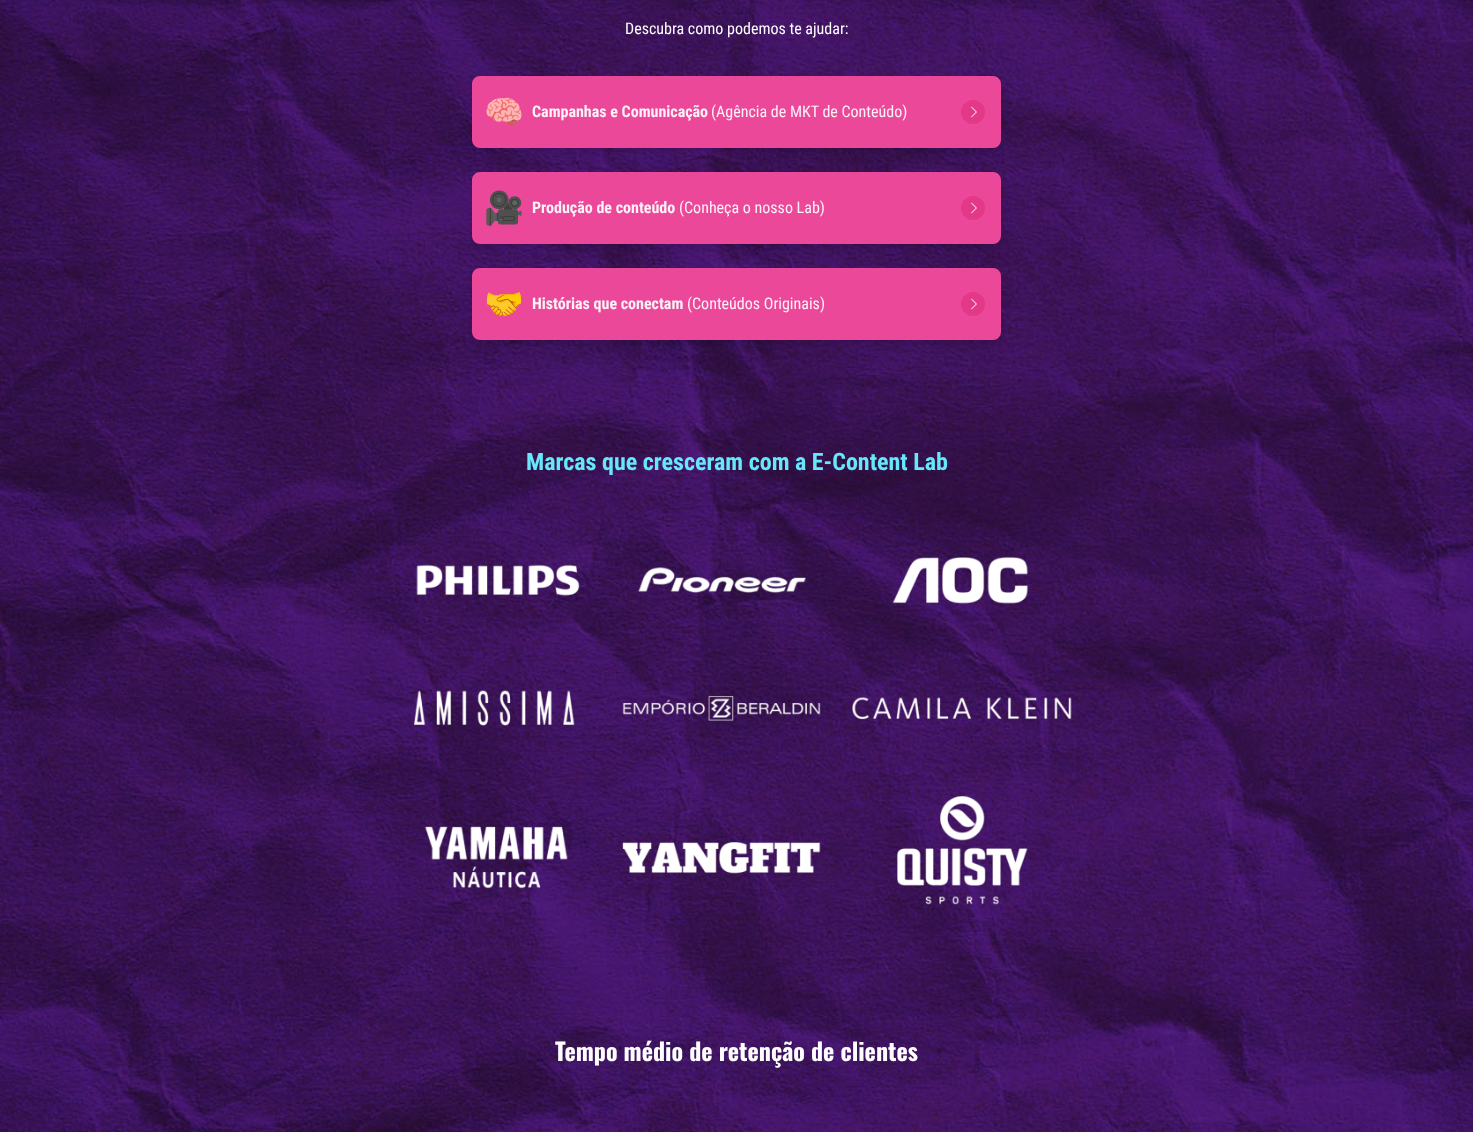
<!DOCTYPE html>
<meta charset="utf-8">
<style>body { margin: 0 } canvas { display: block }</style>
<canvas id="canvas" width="1473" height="1132"></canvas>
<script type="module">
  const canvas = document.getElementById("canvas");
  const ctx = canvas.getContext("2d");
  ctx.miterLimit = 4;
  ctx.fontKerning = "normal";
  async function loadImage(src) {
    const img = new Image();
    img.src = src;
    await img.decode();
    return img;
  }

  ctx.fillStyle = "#020617";
  ctx.fillRect(0, 0, 1473, 1132);
  ctx.drawImage(await loadImage("img1.png"), 0, 0, 1473, 1132);
  ctx.font = "16px Roboto Condensed";
  ctx.fillStyle = "#ffffff";
  ctx.fillText("Descubra como podemos te ajudar:", 625, 34);
  ctx.fillStyle = "rgba(0, 0, 0, 0.1)";
  ctx.filter = "blur(3px)";
  ctx.beginPath();
  ctx.roundRect(476, 84, 521, 64, 4);
  ctx.fill();
  ctx.filter = "none";
  ctx.filter = "blur(7.5px)";
  ctx.beginPath();
  ctx.roundRect(475, 89, 523, 66, 5);
  ctx.fill();
  ctx.filter = "none";
  ctx.fillStyle = "#ec4899";
  ctx.beginPath();
  ctx.roundRect(474, 78, 525, 68, 6);
  ctx.fill();
  ctx.strokeStyle = "#ec4899";
  ctx.lineWidth = 4;
  ctx.stroke();
  ctx.font = "32px Noto Color Emoji";
  ctx.fillStyle = "#fdf2f8";
  ctx.fillText("🧠", 484, 123);
  ctx.font = "bold 16px Roboto Condensed";
  ctx.fillText("Campanhas e Comunicação", 532, 117);
  ctx.font = "16px Roboto Condensed";
  ctx.fillText("(Agência de MKT de Conteúdo)", 711, 117);
  ctx.fillStyle = "#e43888";
  ctx.beginPath();
  ctx.arc(973, 112, 12, 0, Math.PI * 2);
  ctx.fill();
  ctx.drawImage(await loadImage("img2.png"), 971, 106, 6, 12);
  ctx.fillStyle = "rgba(0, 0, 0, 0.1)";
  ctx.filter = "blur(3px)";
  ctx.beginPath();
  ctx.roundRect(476, 180, 521, 64, 4);
  ctx.fill();
  ctx.filter = "none";
  ctx.filter = "blur(7.5px)";
  ctx.beginPath();
  ctx.roundRect(475, 185, 523, 66, 5);
  ctx.fill();
  ctx.filter = "none";
  ctx.fillStyle = "#ec4899";
  ctx.beginPath();
  ctx.roundRect(474, 174, 525, 68, 6);
  ctx.fill();
  ctx.stroke();
  ctx.font = "32px Noto Color Emoji";
  ctx.fillStyle = "#fdf2f8";
  ctx.fillText("🎥", 484, 219);
  ctx.font = "bold 16px Roboto Condensed";
  ctx.fillText("Produção de conteúdo", 532, 213);
  ctx.font = "16px Roboto Condensed";
  ctx.fillText("(Conheça o nosso Lab)", 679, 213);
  ctx.fillStyle = "#e43888";
  ctx.beginPath();
  ctx.arc(973, 208, 12, 0, Math.PI * 2);
  ctx.fill();
  ctx.drawImage(await loadImage("img2.png"), 971, 202, 6, 12);
  ctx.fillStyle = "rgba(0, 0, 0, 0.1)";
  ctx.filter = "blur(3px)";
  ctx.beginPath();
  ctx.roundRect(476, 276, 521, 64, 4);
  ctx.fill();
  ctx.filter = "none";
  ctx.filter = "blur(7.5px)";
  ctx.beginPath();
  ctx.roundRect(475, 281, 523, 66, 5);
  ctx.fill();
  ctx.filter = "none";
  ctx.fillStyle = "#ec4899";
  ctx.beginPath();
  ctx.roundRect(474, 270, 525, 68, 6);
  ctx.fill();
  ctx.stroke();
  ctx.font = "32px Noto Color Emoji";
  ctx.fillStyle = "#fdf2f8";
  ctx.fillText("🤝", 484, 315);
  ctx.font = "bold 16px Roboto Condensed";
  ctx.fillText("Histórias que conectam", 532, 309);
  ctx.font = "16px Roboto Condensed";
  ctx.fillText("(Conteúdos Originais)", 687, 309);
  ctx.fillStyle = "#e43888";
  ctx.beginPath();
  ctx.arc(973, 304, 12, 0, Math.PI * 2);
  ctx.fill();
  ctx.drawImage(await loadImage("img2.png"), 971, 298, 6, 12);
  ctx.font = "bold 24px Roboto Condensed";
  ctx.fillStyle = "#67e8f9";
  ctx.fillText("Marcas que cresceram com a E-Content Lab", 526, 470);
  ctx.drawImage(await loadImage("img3.png"), 413, 557, 659, 348);
  ctx.font = "bold 24px Oswald";
  ctx.fillStyle = "#ffffff";
  ctx.fillText("Tempo médio de retenção de clientes", 555, 1061);
</script>
